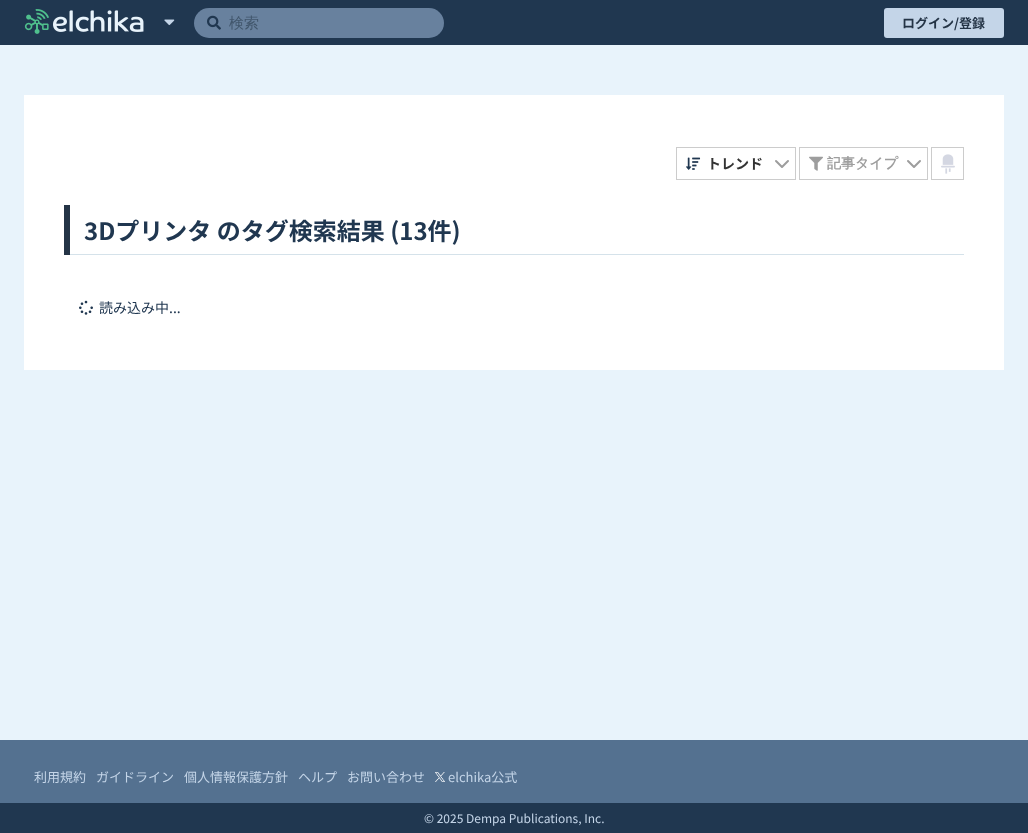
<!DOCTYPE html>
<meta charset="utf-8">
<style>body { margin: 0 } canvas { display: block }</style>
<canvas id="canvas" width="1028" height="833"></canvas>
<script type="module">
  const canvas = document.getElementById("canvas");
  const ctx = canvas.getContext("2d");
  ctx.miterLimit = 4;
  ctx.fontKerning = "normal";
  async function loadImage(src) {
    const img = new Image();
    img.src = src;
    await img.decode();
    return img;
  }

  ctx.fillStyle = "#e8f3fb";
  ctx.fillRect(0, 0, 1028, 833);
  ctx.fillStyle = "#203750";
  ctx.fillRect(0, 0, 1028, 45);
  ctx.drawImage(await loadImage("img1.png"), 24, 9, 120, 25);
  ctx.drawImage(await loadImage("img2.png"), 164, 19, 11, 7);
  ctx.fillStyle = "#68819e";
  ctx.beginPath();
  ctx.roundRect(194, 8, 250, 30, 15);
  ctx.fill();
  ctx.drawImage(await loadImage("img3.png"), 207, 15, 14, 15);
  ctx.font = "500 15px WenQuanYi Zen Hei";
  ctx.fillStyle = "#41566c";
  ctx.fillText("検索", 229, 28);
  ctx.fillStyle = "#c4d5e8";
  ctx.beginPath();
  ctx.roundRect(884, 8, 120, 30, 3);
  ctx.fill();
  ctx.font = "bold 13px Noto Sans JP";
  ctx.fillStyle = "#243446";
  ctx.fillText("ログイン/登録", 902, 28);
  ctx.fillStyle = "#ffffff";
  ctx.fillRect(24, 95, 980, 275);
  ctx.drawImage(await loadImage("img4.png"), 686, 157, 15, 13);
  ctx.strokeStyle = "#cccccc";
  ctx.strokeRect(676.5, 147.5, 119, 32);
  ctx.font = "bold 14px Noto Sans JP";
  ctx.fillStyle = "#333333";
  ctx.fillText("トレンド", 707, 169);
  ctx.beginPath();
  ctx.moveTo(776, 161);
  ctx.lineTo(782, 167);
  ctx.lineTo(788, 161);
  ctx.strokeStyle = "#9d9d9d";
  ctx.lineWidth = 2;
  ctx.lineCap = "round";
  ctx.lineJoin = "round";
  ctx.stroke();
  ctx.drawImage(await loadImage("img5.png"), 809, 156, 14, 15);
  ctx.strokeStyle = "#cccccc";
  ctx.lineWidth = 1;
  ctx.lineJoin = "miter";
  ctx.strokeRect(799.5, 147.5, 128, 32);
  ctx.font = "bold 14px WenQuanYi Zen Hei";
  ctx.fillStyle = "#9e9e9e";
  ctx.fillText("記事タイプ", 827, 168);
  ctx.beginPath();
  ctx.moveTo(908, 161);
  ctx.lineTo(914, 167);
  ctx.lineTo(920, 161);
  ctx.strokeStyle = "#9d9d9d";
  ctx.lineWidth = 2;
  ctx.lineJoin = "round";
  ctx.stroke();
  ctx.strokeStyle = "#cccccc";
  ctx.lineWidth = 1;
  ctx.lineJoin = "miter";
  ctx.strokeRect(931.5, 147.5, 32, 32);
  ctx.drawImage(await loadImage("img6.png"), 941, 154, 14, 20);
  ctx.fillStyle = "#d5e2ea";
  ctx.fillRect(64, 254, 900, 1);
  ctx.fillStyle = "#243446";
  ctx.fillRect(64, 205, 6, 50);
  ctx.font = "bold 24px Noto Sans JP";
  ctx.fillStyle = "#203750";
  ctx.fillText("3Dプリンタ のタグ検索結果 (13件)", 84, 240);
  ctx.drawImage(await loadImage("img7.png"), 79, 300, 14, 15);
  ctx.font = "14px Noto Sans JP";
  ctx.fillText("読み込み中...", 99, 313);
  ctx.fillStyle = "#547190";
  ctx.fillRect(0, 740, 1028, 63);
  ctx.font = "13px Noto Sans JP";
  ctx.fillStyle = "#c4d5e8";
  ctx.fillText("利用規約", 34, 782);
  ctx.fillText("ガイドライン", 96, 782);
  ctx.fillText("個人情報保護方針", 184, 782);
  ctx.fillText("ヘルプ", 298, 782);
  ctx.fillText("お問い合わせ", 347, 782);
  ctx.drawImage(await loadImage("img8.png"), 435, 772, 10, 10);
  ctx.fillText("elchika公式", 448, 782);
  ctx.fillStyle = "#203750";
  ctx.fillRect(0, 803, 1028, 30);
  ctx.font = "12px Noto Sans JP";
  ctx.fillStyle = "#c4d5e8";
  ctx.fillText("© 2025 Dempa Publications, Inc.", 424, 823);
</script>
